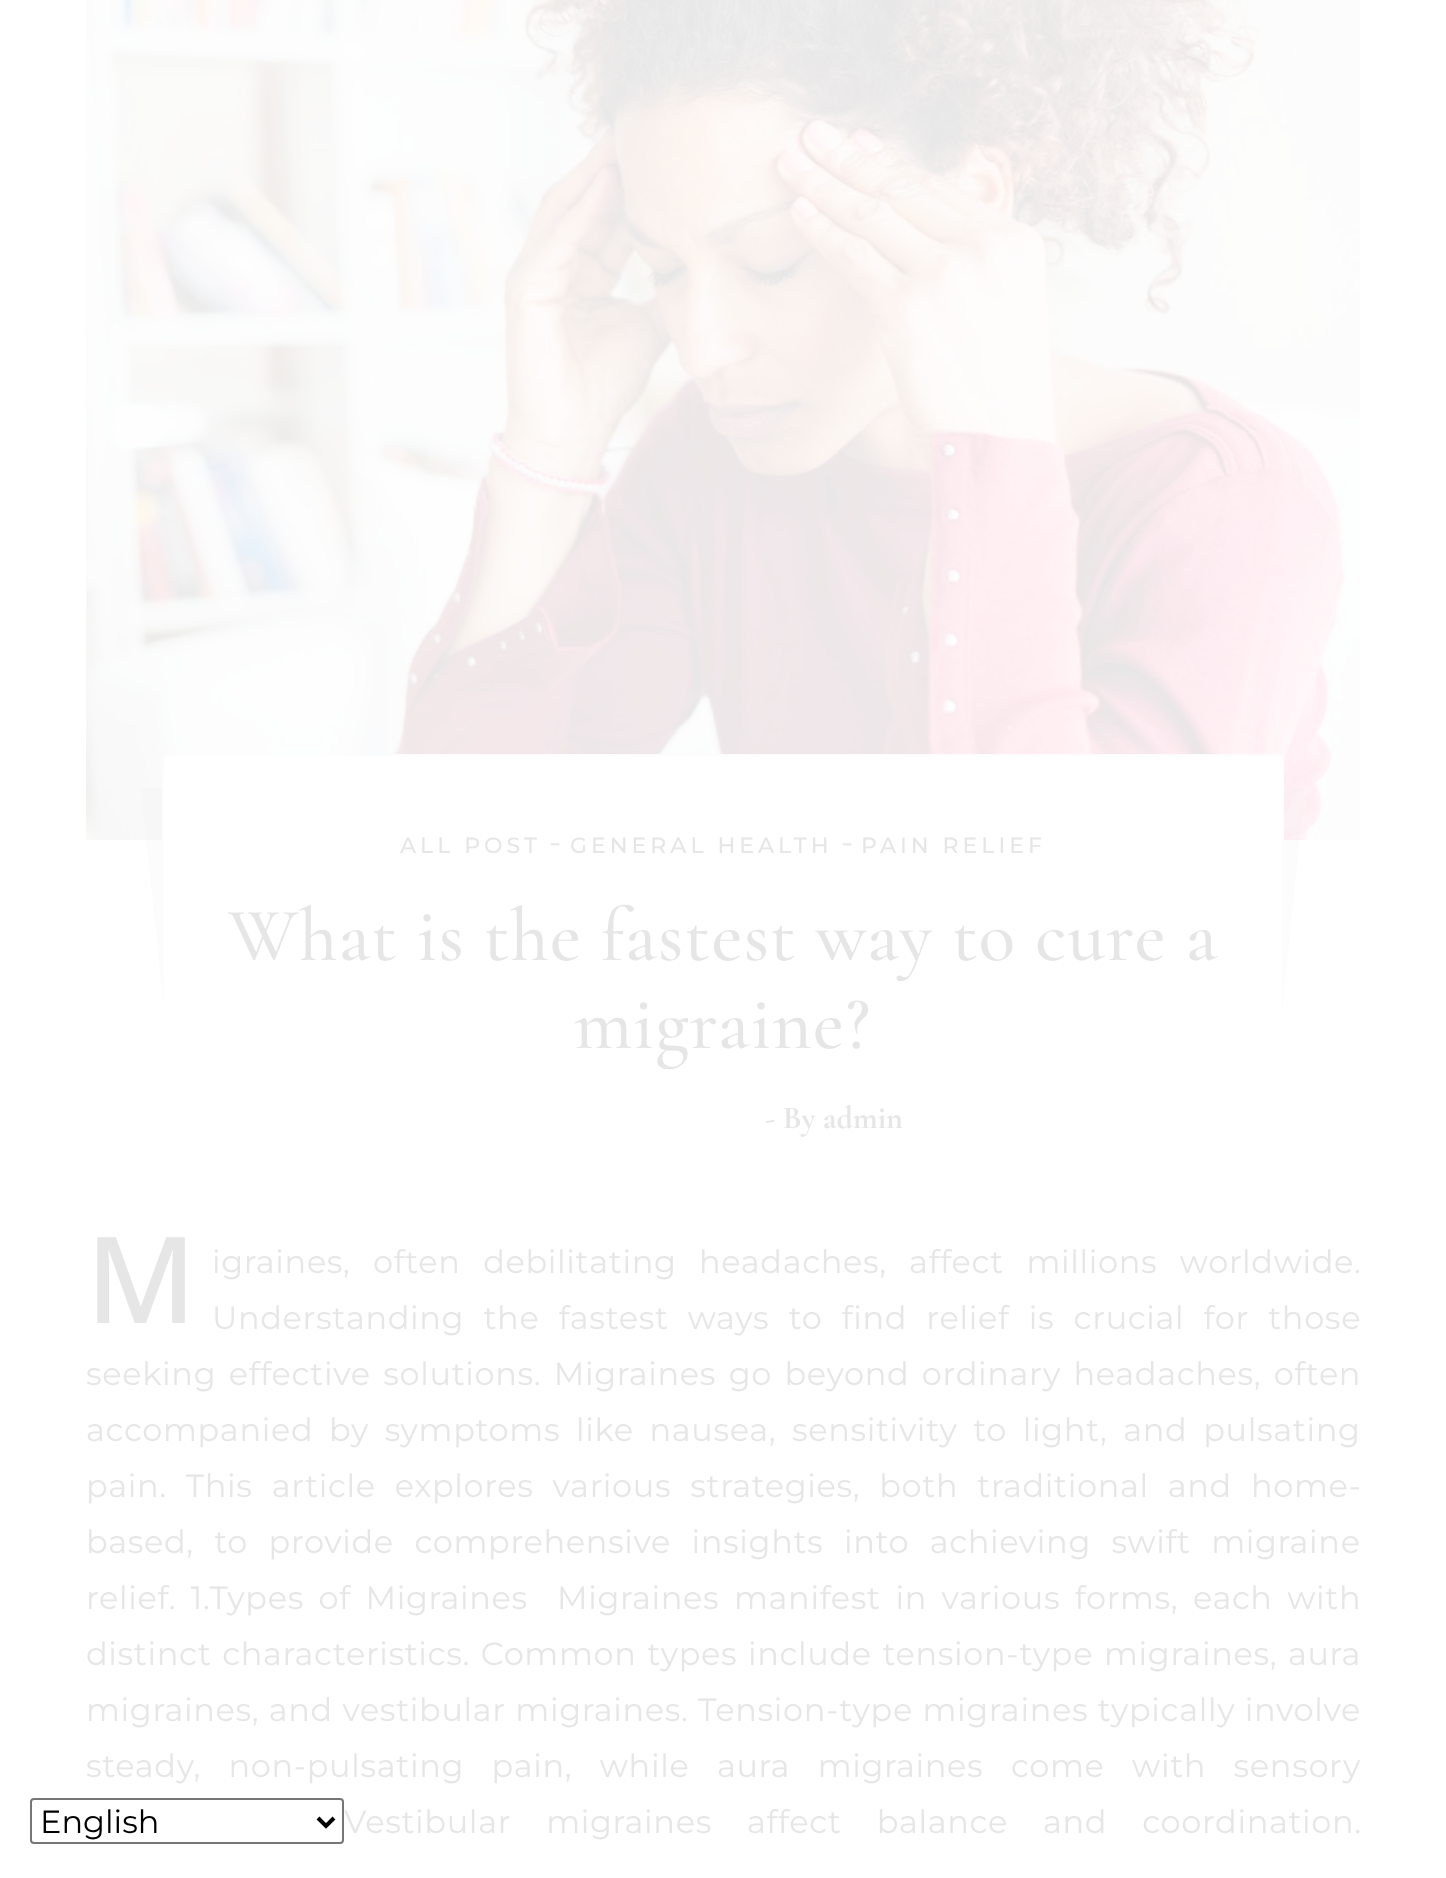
<!DOCTYPE html>
<meta charset="utf-8">
<style>body { margin: 0 } canvas { display: block }</style>
<canvas id="canvas" width="1446" height="1878"></canvas>
<script type="module">
  const canvas = document.getElementById("canvas");
  const ctx = canvas.getContext("2d");
  ctx.miterLimit = 4;
  ctx.fontKerning = "normal";
  async function loadImage(src) {
    const img = new Image();
    img.src = src;
    await img.decode();
    return img;
  }

  ctx.fillStyle = "#ffffff";
  ctx.fillRect(0, 0, 1446, 1878);
  ctx.drawImage(await loadImage("img1.png"), 86, 0, 1274, 840);
  ctx.fillStyle = "rgba(233, 234, 234, 0.15)";
  ctx.beginPath();
  ctx.moveTo(141, 789);
  ctx.lineTo(181, 785);
  ctx.lineTo(212, 1084);
  ctx.lineTo(172, 1088);
  ctx.closePath();
  ctx.fill();
  ctx.beginPath();
  ctx.moveTo(1265, 785);
  ctx.lineTo(1305, 789);
  ctx.lineTo(1274, 1088);
  ctx.lineTo(1234, 1084);
  ctx.closePath();
  ctx.fill();
  ctx.fillStyle = "#ffffff";
  ctx.fillRect(164, 756, 1118, 332);
  ctx.fillStyle = "#fcfcfc";
  ctx.fillRect(391, 754, 893, 2);
  ctx.fillStyle = "#fdfdfd";
  ctx.fillRect(1282, 754, 2, 86);
  ctx.fillRect(162, 772, 2, 68);
  ctx.letterSpacing = "4px";
  ctx.font = "100 22px 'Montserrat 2'";
  ctx.fillStyle = "#e6e6e6";
  ctx.fillText("ALL POST", 400, 853);
  ctx.letterSpacing = "0px";
  ctx.font = "100 32px Montserrat";
  ctx.fillText("-", 549, 853);
  ctx.letterSpacing = "4px";
  ctx.font = "100 22px 'Montserrat 2'";
  ctx.fillText("GENERAL HEALTH", 570, 853);
  ctx.letterSpacing = "0px";
  ctx.font = "100 32px Montserrat";
  ctx.fillText("-", 841, 853);
  ctx.letterSpacing = "4px";
  ctx.font = "100 22px 'Montserrat 2'";
  ctx.fillText("PAIN RELIEF", 861, 853);
  ctx.letterSpacing = "1px";
  ctx.font = "500 76px Cormorant Garamond";
  ctx.fillText("What is the fastest way to cure a", 228, 960);
  ctx.fillText("migraine?", 574, 1048);
  ctx.letterSpacing = "0px";
  ctx.font = "bold 32px Cormorant Garamond";
  ctx.fillText("- By admin", 765, 1128);
  ctx.letterSpacing = "0.65px";
  ctx.font = "500 120px Noto Sans";
  ctx.fillText("M", 86, 1323);
  ctx.wordSpacing = "13.5px";
  ctx.font = "100 32px Montserrat";
  ctx.fillText("igraines, often debilitating headaches, affect millions worldwide.", 212, 1273);
  ctx.wordSpacing = "10.25px";
  ctx.fillText("Understanding the fastest ways to find relief is crucial for those", 212, 1329);
  ctx.wordSpacing = "3.5px";
  ctx.fillText("seeking effective solutions. Migraines go beyond ordinary headaches, often", 86, 1385);
  ctx.wordSpacing = "6.75px";
  ctx.fillText("accompanied by symptoms like nausea, sensitivity to light, and pulsating", 86, 1441);
  ctx.wordSpacing = "10px";
  ctx.fillText("pain. This article explores various strategies, both traditional and home-", 86, 1497);
  ctx.wordSpacing = "11.5px";
  ctx.fillText("based, to provide comprehensive insights into achieving swift migraine", 86, 1553);
  ctx.wordSpacing = "5.6px";
  ctx.fillText("relief. 1.Types of Migraines  Migraines manifest in various forms, each with", 86, 1609);
  ctx.wordSpacing = "1.75px";
  ctx.fillText("distinct characteristics. Common types include tension-type migraines, aura", 86, 1665);
  ctx.wordSpacing = "0.5px";
  ctx.fillText("migraines, and vestibular migraines. Tension-type migraines typically involve", 86, 1721);
  ctx.wordSpacing = "18.5px";
  ctx.fillText("steady, non-pulsating pain, while aura migraines come with sensory", 86, 1777);
  ctx.wordSpacing = "26px";
  ctx.fillText("Vestibular migraines affect balance and coordination.", 344, 1833);
  ctx.beginPath();
  ctx.roundRect(31, 1799, 312, 44, 3);
  ctx.strokeStyle = "#767676";
  ctx.lineWidth = 2;
  ctx.stroke();
  ctx.beginPath();
  ctx.moveTo(318, 1818);
  ctx.lineTo(326, 1826);
  ctx.lineTo(334, 1818);
  ctx.strokeStyle = "#000000";
  ctx.lineWidth = 4;
  ctx.stroke();
  ctx.letterSpacing = "0px";
  ctx.wordSpacing = "0px";
  ctx.fillStyle = "#000000";
  ctx.fillText("English", 40, 1833);
</script>
